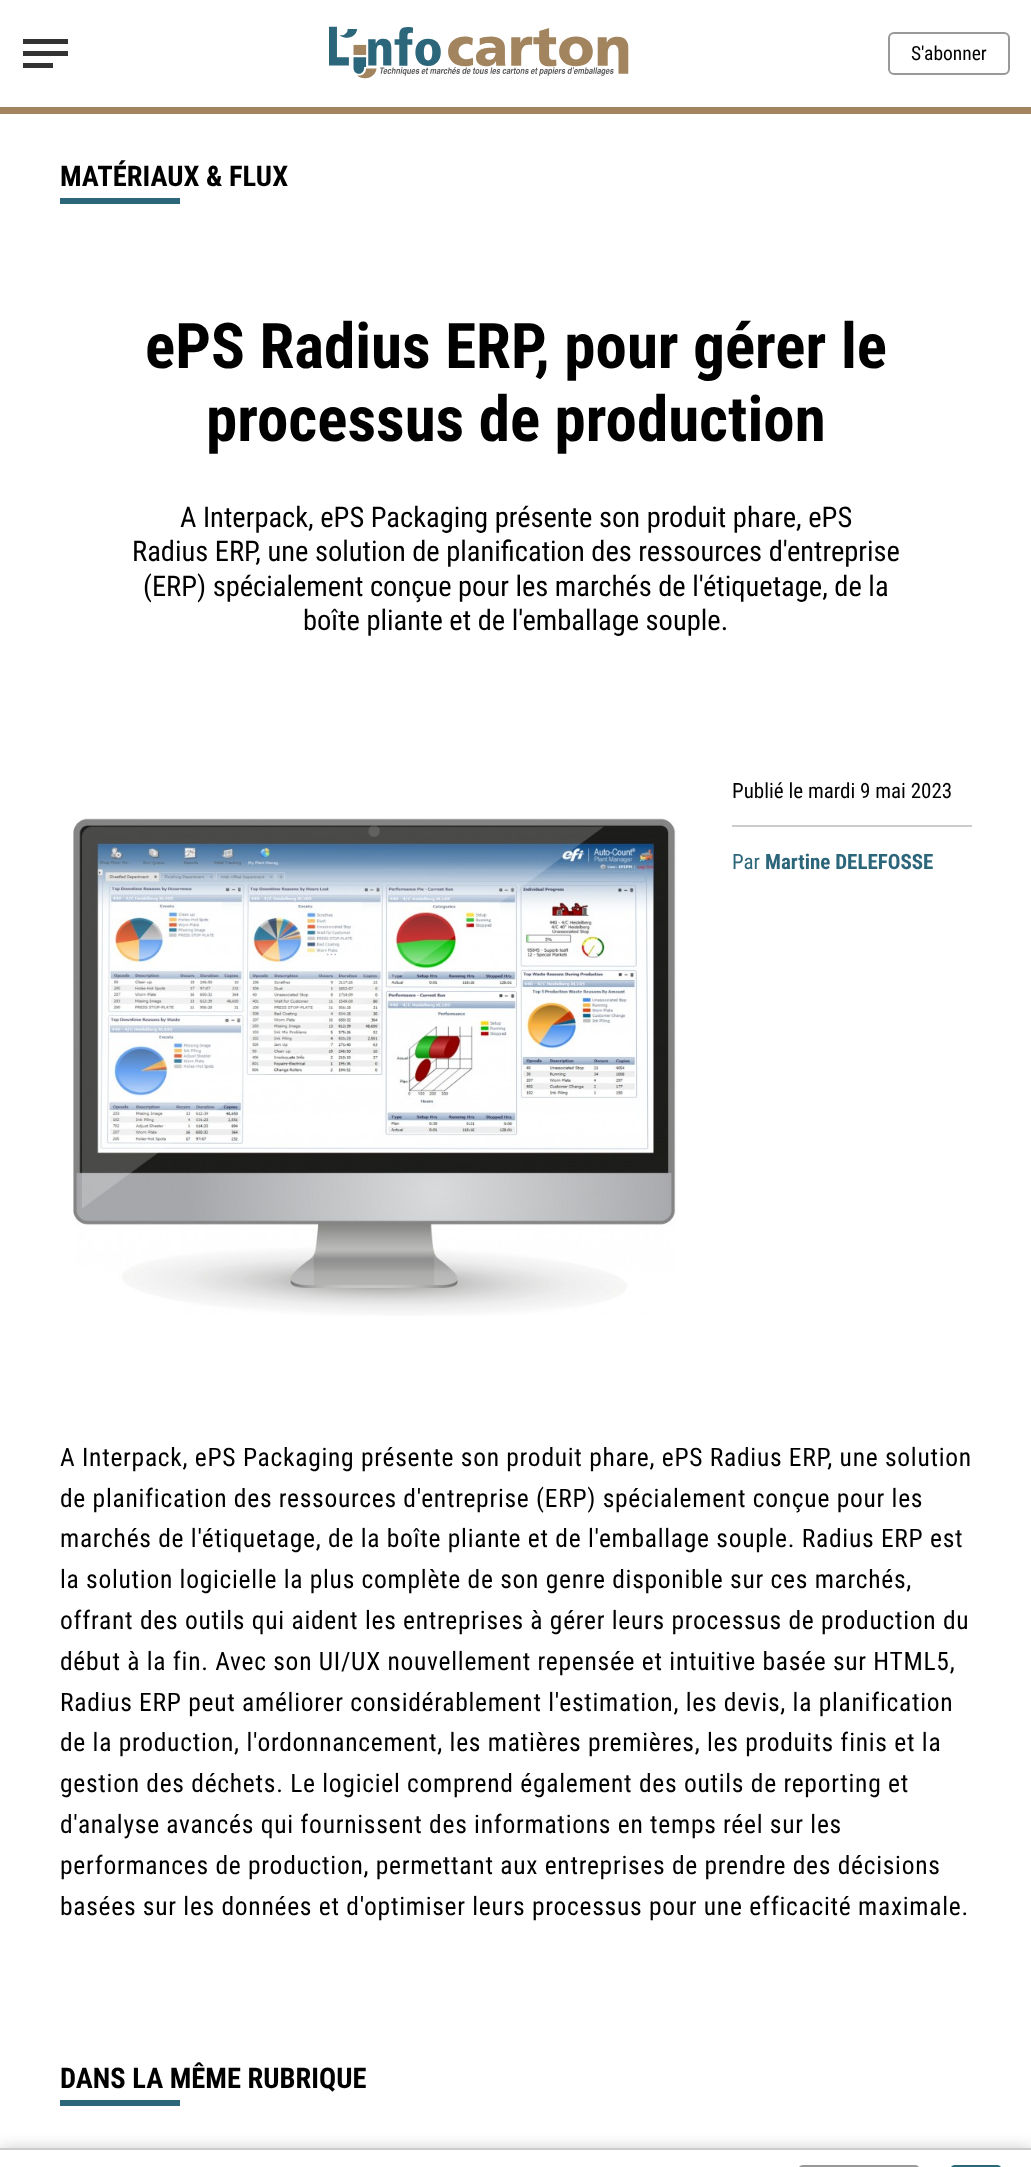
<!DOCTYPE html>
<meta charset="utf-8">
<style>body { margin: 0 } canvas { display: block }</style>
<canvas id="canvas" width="1031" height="2167"></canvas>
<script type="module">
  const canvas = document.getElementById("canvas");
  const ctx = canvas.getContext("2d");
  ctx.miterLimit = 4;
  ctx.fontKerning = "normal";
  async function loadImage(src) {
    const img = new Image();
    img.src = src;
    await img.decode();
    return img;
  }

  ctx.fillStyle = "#ffffff";
  ctx.fillRect(0, 0, 1031, 2167);
  ctx.fillStyle = "#333333";
  ctx.fillRect(23, 39, 45, 5);
  ctx.fillRect(23, 51, 45, 5);
  ctx.fillRect(23, 63, 30, 5);
  ctx.drawImage(await loadImage("img1.png"), 329, 26, 300, 53);
  ctx.beginPath();
  ctx.roundRect(889, 33, 120, 41, 5);
  ctx.strokeStyle = "#999999";
  ctx.lineWidth = 2;
  ctx.stroke();
  ctx.font = "19.5px Roboto Condensed";
  ctx.fillStyle = "#000000";
  ctx.fillText("S'abonner", 911, 60);
  ctx.fillStyle = "#a2845e";
  ctx.fillRect(0, 107, 1031, 7);
  ctx.font = "bold 28.5px Roboto Condensed";
  ctx.fillStyle = "#000000";
  ctx.fillText("MATÉRIAUX & FLUX", 60, 186);
  ctx.fillStyle = "#2c667a";
  ctx.fillRect(60, 198, 120, 6);
  ctx.font = "bold 63px Roboto Condensed";
  ctx.fillStyle = "#000000";
  ctx.fillText("ePS Radius ERP, pour gérer le", 145, 368);
  ctx.fillText("processus de production", 206, 441);
  ctx.font = "28.5px Roboto Condensed";
  ctx.fillText("A Interpack, ePS Packaging présente son produit phare, ePS", 180, 527);
  ctx.fillText("Radius ERP, une solution de planification des ressources d'entreprise", 132, 561);
  ctx.fillText("(ERP) spécialement conçue pour les marchés de l'étiquetage, de la", 143, 596);
  ctx.fillText("boîte pliante et de l'emballage souple.", 303, 630);
  ctx.drawImage(await loadImage("img2.png"), 73, 818, 603, 498);
  ctx.font = "21px Roboto Condensed";
  ctx.fillText("Publié le mardi 9 mai 2023", 732, 798);
  ctx.fillStyle = "#cccccc";
  ctx.fillRect(732, 825, 240, 2);
  ctx.fillStyle = "#2c667a";
  ctx.fillText("Par", 732, 869);
  ctx.font = "bold 21px Roboto Condensed";
  ctx.fillText("Martine DELEFOSSE", 765, 869);
  ctx.letterSpacing = "0.72px";
  ctx.font = "25.5px Roboto Condensed";
  ctx.fillStyle = "#000000";
  ctx.fillText("A Interpack, ePS Packaging présente son produit phare, ePS Radius ERP, une solution", 60, 1466);
  ctx.fillText("de planification des ressources d'entreprise (ERP) spécialement conçue pour les", 60, 1507);
  ctx.fillText("marchés de l'étiquetage, de la boîte pliante et de l'emballage souple. Radius ERP est", 60, 1547);
  ctx.fillText("la solution logicielle la plus complète de son genre disponible sur ces marchés,", 60, 1588);
  ctx.fillText("offrant des outils qui aident les entreprises à gérer leurs processus de production du", 60, 1629);
  ctx.fillText("début à la fin. Avec son UI/UX nouvellement repensée et intuitive basée sur HTML5,", 60, 1670);
  ctx.fillText("Radius ERP peut améliorer considérablement l'estimation, les devis, la planification", 60, 1711);
  ctx.fillText("de la production, l'ordonnancement, les matières premières, les produits finis et la", 60, 1751);
  ctx.fillText("gestion des déchets. Le logiciel comprend également des outils de reporting et", 60, 1792);
  ctx.fillText("d'analyse avancés qui fournissent des informations en temps réel sur les", 60, 1833);
  ctx.fillText("performances de production, permettant aux entreprises de prendre des décisions", 60, 1874);
  ctx.fillText("basées sur les données et d'optimiser leurs processus pour une efficacité maximale.", 60, 1915);
  ctx.letterSpacing = "0px";
  ctx.font = "bold 28.5px Roboto Condensed";
  ctx.fillText("DANS LA MÊME RUBRIQUE", 60, 2088);
  ctx.fillStyle = "#2c667a";
  ctx.fillRect(60, 2100, 120, 6);
  ctx.fillStyle = "rgba(0, 0, 0, 0.2)";
  ctx.filter = "blur(7.5px)";
  ctx.beginPath();
  ctx.rect(0, 2148, 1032, 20);
  ctx.fill();
  ctx.filter = "none";
  ctx.fillStyle = "#ffffff";
  ctx.fillRect(0, 2150, 1031, 17);
  ctx.fillStyle = "#cccccc";
  ctx.fillRect(0, 2148, 1031, 2);
  ctx.beginPath();
  ctx.roundRect(799, 2166, 120, 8, 5);
  ctx.stroke();
  ctx.beginPath();
  ctx.roundRect(951, 2166, 50, 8, 5);
  ctx.strokeStyle = "#2c667a";
  ctx.stroke();
</script>
